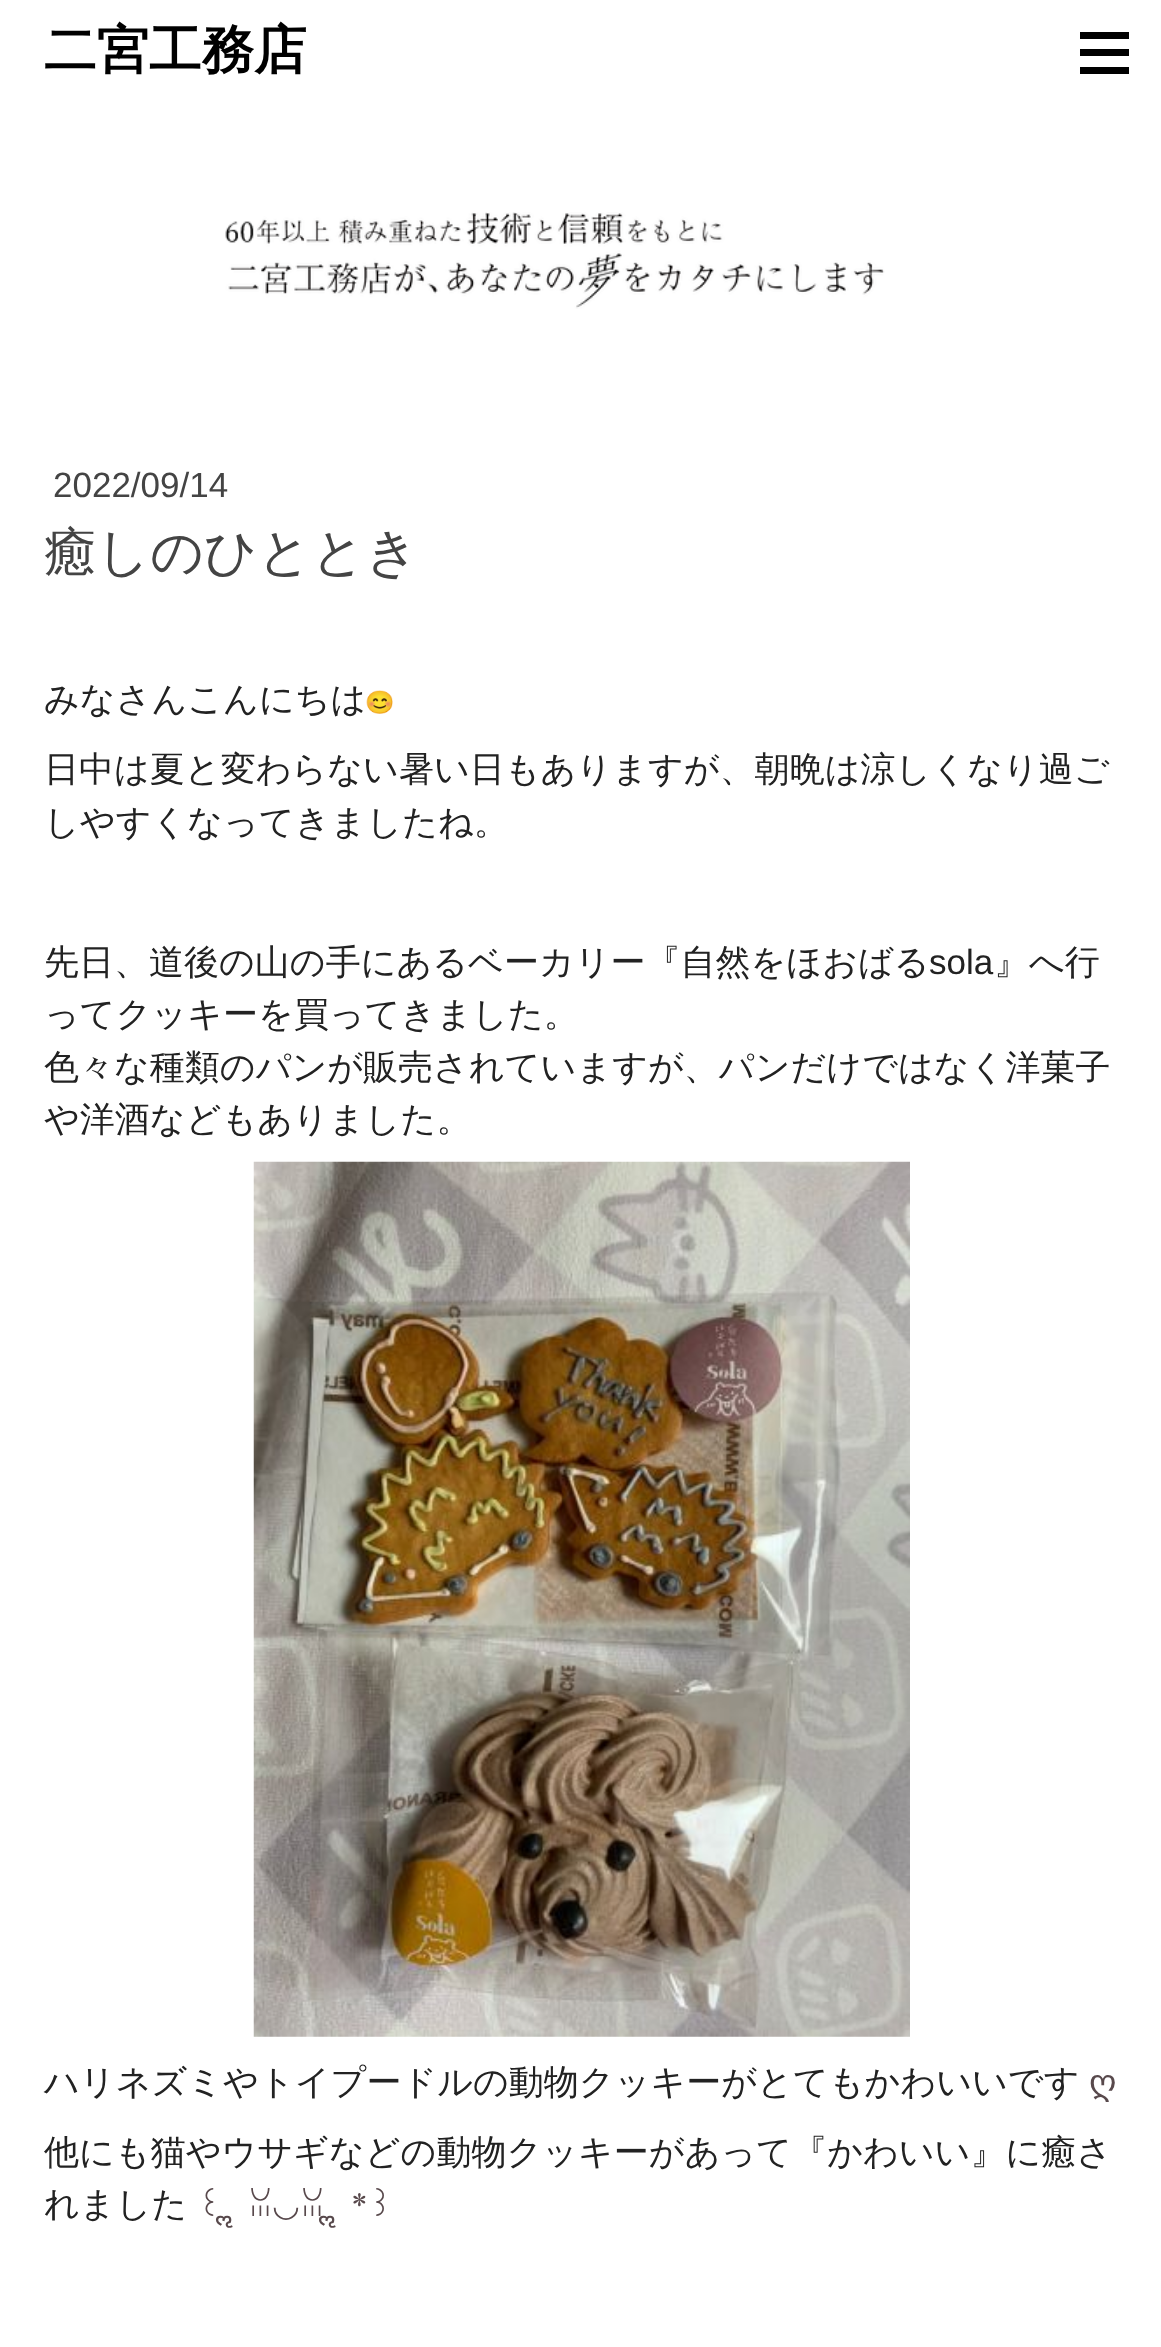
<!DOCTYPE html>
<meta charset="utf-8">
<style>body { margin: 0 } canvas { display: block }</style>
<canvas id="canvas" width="1161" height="2347"></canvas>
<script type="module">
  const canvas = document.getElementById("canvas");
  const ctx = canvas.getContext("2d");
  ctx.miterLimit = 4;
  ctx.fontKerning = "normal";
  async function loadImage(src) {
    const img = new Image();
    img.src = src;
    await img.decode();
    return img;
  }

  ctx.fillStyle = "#ffffff";
  ctx.fillRect(0, 0, 1161, 2347);
  ctx.font = "bold 52.5px WenQuanYi Zen Hei";
  ctx.fillStyle = "#000000";
  ctx.fillText("二宮工務店", 44, 68);
  ctx.fillRect(1080, 32, 49, 7);
  ctx.fillRect(1080, 49, 49, 7);
  ctx.fillRect(1080, 67, 49, 7);
  ctx.drawImage(await loadImage("img1.png"), 225, 212, 660, 97);
  ctx.font = "35px Liberation Sans";
  ctx.fillStyle = "#444444";
  ctx.fillText("2022/09/14", 53, 497);
  ctx.font = "500 52.5px WenQuanYi Zen Hei";
  ctx.fillText("癒しのひととき", 44, 570);
  ctx.font = "500 35px WenQuanYi Zen Hei";
  ctx.fillStyle = "#222222";
  ctx.fillText("みなさんこんにちは", 44, 711);
  ctx.drawImage(await loadImage("img2.png"), 366, 690, 27, 24);
  ctx.fillText("日中は夏と変わらない暑い日もありますが、朝晩は涼しくなり過ご", 44, 781);
  ctx.fillText("しやすくなってきましたね。", 44, 834);
  ctx.fillText("先日、道後の山の手にあるベーカリー『自然をほおばる", 44, 974);
  ctx.font = "35px Liberation Sans";
  ctx.fillText("sola", 929, 974);
  ctx.font = "500 35px WenQuanYi Zen Hei";
  ctx.fillText("』へ行", 994, 974);
  ctx.fillText("ってクッキーを買ってきました。", 44, 1026);
  ctx.fillText("色々な種類のパンが販売されていますが、パンだけではなく洋菓子", 44, 1079);
  ctx.fillText("や洋酒などもありました。", 44, 1131);
  ctx.drawImage(await loadImage("img3.png"), 253, 1161, 657, 876);
  ctx.fillText("ハリネズミやトイプードルの動物クッキーがとてもかわいいです", 44, 2094);
  ctx.font = "35px DejaVu Sans";
  ctx.fillStyle = "#58494c";
  ctx.fillText("ღ", 1089, 2094);
  ctx.font = "500 35px WenQuanYi Zen Hei";
  ctx.fillStyle = "#222222";
  ctx.fillText("他にも猫やウサギなどの動物クッキーがあって『かわいい』に癒さ", 44, 2164);
  ctx.fillText("れました", 44, 2216);
  ctx.font = "32px Nuosu SIL";
  ctx.fillStyle = "#58494c";
  ctx.fillText("꒰", 197, 2216);
  ctx.font = "32px Noto Sans";
  ctx.fillText("ॢ", 229, 2216);
  ctx.font = "32px Nuosu SIL";
  ctx.fillText("ꈍ", 248, 2216);
  ctx.font = "32px DejaVu Sans";
  ctx.fillText("◡", 272, 2216);
  ctx.font = "32px Nuosu SIL";
  ctx.fillText("ꈍ", 300, 2216);
  ctx.font = "32px Noto Sans";
  ctx.fillText("ॢ", 332, 2216);
  ctx.font = "32px Nuosu SIL";
  ctx.fillText("*꒱", 351, 2216);
</script>
